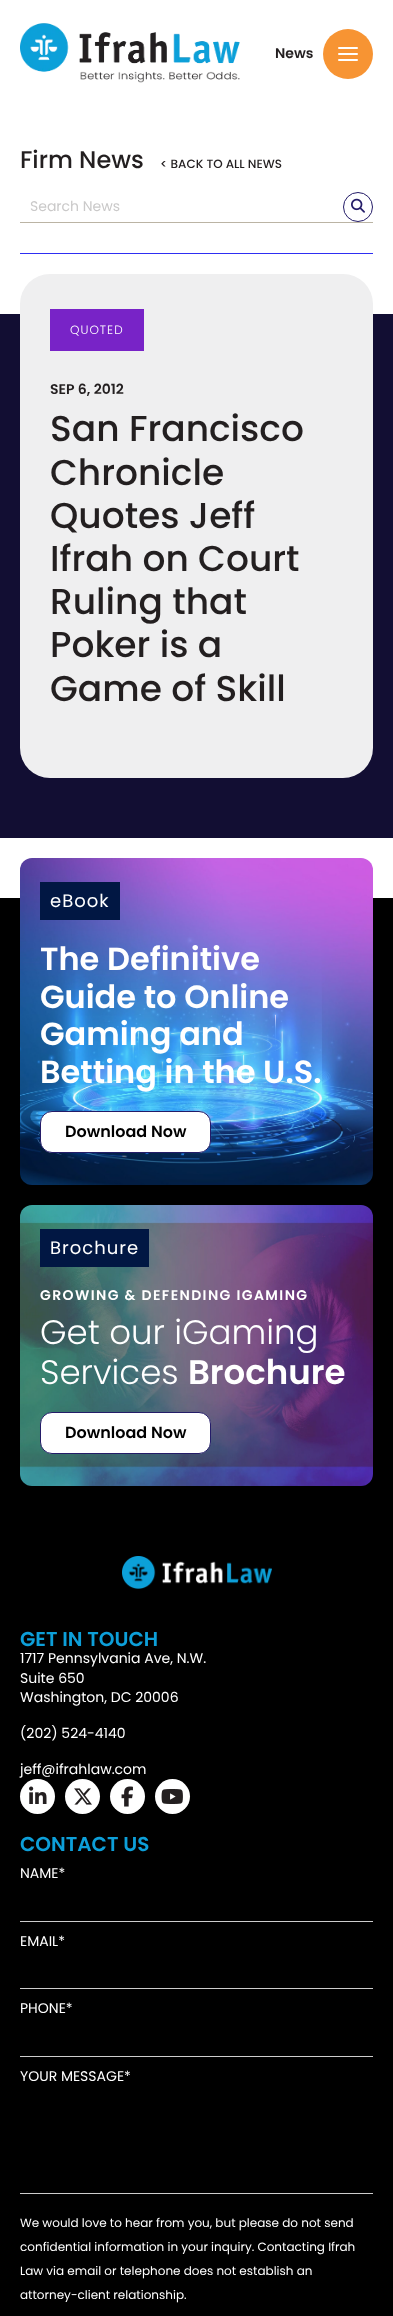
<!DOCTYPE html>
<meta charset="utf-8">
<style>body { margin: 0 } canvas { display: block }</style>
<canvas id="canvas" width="393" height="2316"></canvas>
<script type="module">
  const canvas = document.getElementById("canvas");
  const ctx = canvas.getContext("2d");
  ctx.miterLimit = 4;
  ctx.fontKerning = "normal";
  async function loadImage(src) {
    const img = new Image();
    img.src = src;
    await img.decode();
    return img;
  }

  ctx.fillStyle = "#ffffff";
  ctx.fillRect(0, 0, 393, 2316);
  ctx.drawImage(await loadImage("img1.png"), 20, 23, 220, 60);
  ctx.font = "600 14px Poppins";
  ctx.fillStyle = "#231f20";
  ctx.fillText("News", 275, 58);
  ctx.fillStyle = "#f79433";
  ctx.beginPath();
  ctx.arc(348, 54, 25, 0, Math.PI * 2);
  ctx.fill();
  ctx.fillStyle = "#ffffff";
  ctx.beginPath();
  ctx.roundRect(338, 53, 20, 2, 1);
  ctx.fill();
  ctx.beginPath();
  ctx.roundRect(338, 47, 20, 2, 1);
  ctx.fill();
  ctx.beginPath();
  ctx.roundRect(338, 59, 20, 2, 1);
  ctx.fill();
  ctx.font = "500 24px Poppins";
  ctx.fillStyle = "#231f20";
  ctx.fillText("Firm News", 20, 168);
  ctx.font = "500 12px Poppins";
  ctx.fillText("< BACK TO ALL NEWS", 160, 168);
  ctx.fillStyle = "#bbb4a4";
  ctx.fillRect(20, 222, 353, 1);
  ctx.font = "14px Poppins";
  ctx.fillStyle = "#cac9c9";
  ctx.fillText("Search News", 30, 211);
  ctx.beginPath();
  ctx.arc(358, 207, 14.5, 0, Math.PI * 2);
  ctx.strokeStyle = "#241c68";
  ctx.stroke();
  ctx.drawImage(await loadImage("img2.png"), 351, 198, 14, 15);
  ctx.fillStyle = "#2e2ef2";
  ctx.fillRect(20, 253, 353, 1);
  ctx.fillStyle = "#120e33";
  ctx.fillRect(0, 314, 393, 524);
  ctx.fillStyle = "#efeff0";
  ctx.beginPath();
  ctx.roundRect(20, 274, 353, 504, 30);
  ctx.fill();
  ctx.fillStyle = "#7823c7";
  ctx.fillRect(50, 309, 94, 42);
  ctx.letterSpacing = "1px";
  ctx.font = "300 12px Poppins";
  ctx.fillStyle = "#ffffff";
  ctx.fillText("QUOTED", 70, 334);
  ctx.letterSpacing = "0px";
  ctx.font = "600 14px Poppins";
  ctx.fillStyle = "#231f20";
  ctx.fillText("SEP 6, 2012", 50, 394);
  ctx.font = "500 36px Poppins";
  ctx.fillText("San Francisco", 50, 441);
  ctx.fillText("Chronicle", 50, 485);
  ctx.fillText("Quotes Jeff", 50, 528);
  ctx.fillText("Ifrah on Court", 50, 571);
  ctx.fillText("Ruling that", 50, 614);
  ctx.fillText("Poker is a", 50, 657);
  ctx.fillText("Game of Skill", 50, 701);
  ctx.fillStyle = "#000000";
  ctx.fillRect(0, 898, 393, 1418);
  ctx.drawImage(await loadImage("img3.png"), 20, 858, 353, 327);
  ctx.fillStyle = "#011743";
  ctx.fillRect(40, 882, 80, 38);
  ctx.letterSpacing = "1px";
  ctx.font = "18px Poppins";
  ctx.fillStyle = "#ffffff";
  ctx.fillText("eBook", 50, 907);
  ctx.letterSpacing = "0px";
  ctx.font = "600 32px Poppins";
  ctx.fillText("The Definitive", 40, 970);
  ctx.fillText("Guide to Online", 40, 1008);
  ctx.fillText("Gaming and", 40, 1045);
  ctx.fillText("Betting in the U.S.", 40, 1083);
  ctx.beginPath();
  ctx.roundRect(40.5, 1111.5, 170, 41, 11.5);
  ctx.fill();
  ctx.stroke();
  ctx.font = "600 16px Poppins";
  ctx.fillStyle = "#000000";
  ctx.fillText("Download Now", 65, 1137);
  ctx.drawImage(await loadImage("img4.png"), 20, 1205, 353, 281);
  ctx.fillStyle = "#011743";
  ctx.fillRect(40, 1229, 109, 38);
  ctx.letterSpacing = "1px";
  ctx.font = "18px Poppins";
  ctx.fillStyle = "#ffffff";
  ctx.fillText("Brochure", 50, 1254);
  ctx.letterSpacing = "1.4px";
  ctx.font = "600 14px Poppins";
  ctx.fillText("GROWING & DEFENDING IGAMING", 40, 1300);
  ctx.letterSpacing = "0px";
  ctx.font = "300 34px Poppins";
  ctx.fillText("Get our iGaming", 40, 1344);
  ctx.fillText("Services", 40, 1384);
  ctx.font = "600 34px Poppins";
  ctx.fillText("Brochure", 188, 1384);
  ctx.beginPath();
  ctx.roundRect(40.5, 1412.5, 170, 41, 11.5);
  ctx.fill();
  ctx.stroke();
  ctx.font = "600 16px Poppins";
  ctx.fillStyle = "#000000";
  ctx.fillText("Download Now", 65, 1438);
  ctx.drawImage(await loadImage("img5.png"), 122, 1556, 150, 33);
  ctx.font = "600 20px Poppins";
  ctx.fillStyle = "#0d9fd9";
  ctx.fillText("GET IN TOUCH", 20, 1646);
  ctx.font = "14px Poppins";
  ctx.fillStyle = "#ffffff";
  ctx.fillText("1717 Pennsylvania Ave, N.W.", 20, 1663);
  ctx.fillText("Suite 650", 20, 1683);
  ctx.fillText("Washington, DC 20006", 20, 1702);
  ctx.fillText("(202) 524-4140", 20, 1738);
  ctx.fillText("jeff@ifrahlaw.com", 20, 1774);
  ctx.beginPath();
  ctx.arc(37.5, 1796.5, 17.5, 0, Math.PI * 2);
  ctx.fill();
  ctx.drawImage(await loadImage("img6.png"), 29, 1786, 18, 18);
  ctx.beginPath();
  ctx.arc(82.5, 1796.5, 17.5, 0, Math.PI * 2);
  ctx.fill();
  ctx.drawImage(await loadImage("img7.png"), 74, 1788, 18, 17);
  ctx.beginPath();
  ctx.arc(127.5, 1796.5, 17.5, 0, Math.PI * 2);
  ctx.fill();
  ctx.drawImage(await loadImage("img8.png"), 121, 1786, 12, 21);
  ctx.beginPath();
  ctx.arc(172.5, 1796.5, 17.5, 0, Math.PI * 2);
  ctx.fill();
  ctx.drawImage(await loadImage("img9.png"), 161, 1789, 22, 15);
  ctx.font = "600 20px Poppins";
  ctx.fillStyle = "#0d9fd9";
  ctx.fillText("CONTACT US", 20, 1851);
  ctx.font = "14px Poppins";
  ctx.fillStyle = "#ffffff";
  ctx.fillText("NAME*", 20, 1878);
  ctx.fillStyle = "#cccccc";
  ctx.fillRect(20, 1921, 353, 1);
  ctx.fillStyle = "#ffffff";
  ctx.fillText("EMAIL*", 20, 1946);
  ctx.fillStyle = "#cccccc";
  ctx.fillRect(20, 1988, 353, 1);
  ctx.fillStyle = "#ffffff";
  ctx.fillText("PHONE*", 20, 2013);
  ctx.fillStyle = "#cccccc";
  ctx.fillRect(20, 2056, 353, 1);
  ctx.fillStyle = "#ffffff";
  ctx.fillText("YOUR MESSAGE*", 20, 2081);
  ctx.fillStyle = "#cccccc";
  ctx.fillRect(20, 2193, 353, 1);
  ctx.font = "12px Poppins";
  ctx.fillStyle = "#ffffff";
  ctx.fillText("We would love to hear from you, but please do not send", 20, 2227);
  ctx.fillText("confidential information in your inquiry. Contacting Ifrah", 20, 2251);
  ctx.fillText("Law via email or telephone does not establish an", 20, 2275);
  ctx.fillText("attorney-client relationship.", 20, 2299);
</script>
